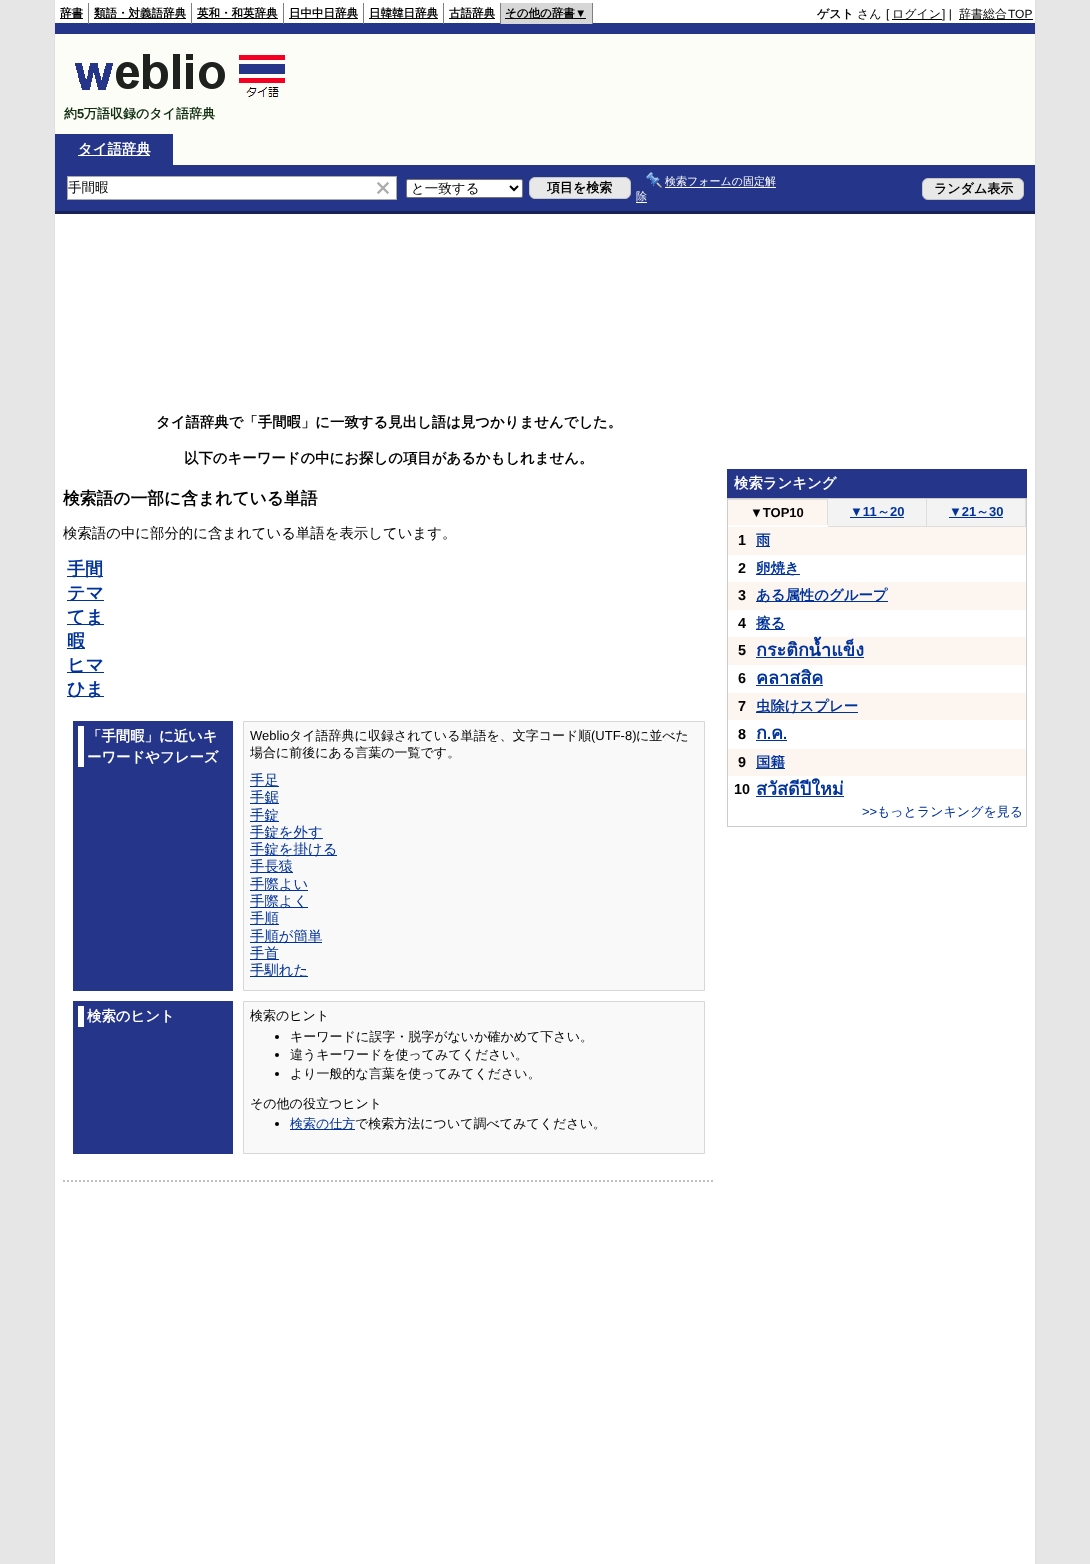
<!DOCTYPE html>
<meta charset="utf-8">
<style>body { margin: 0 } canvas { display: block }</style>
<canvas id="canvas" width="1090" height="1564"></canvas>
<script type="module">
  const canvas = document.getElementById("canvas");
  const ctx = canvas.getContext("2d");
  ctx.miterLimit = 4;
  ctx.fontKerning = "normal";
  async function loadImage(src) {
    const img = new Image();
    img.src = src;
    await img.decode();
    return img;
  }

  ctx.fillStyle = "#e6e6e6";
  ctx.fillRect(0, 0, 1090, 1564);
  ctx.fillStyle = "#ffffff";
  ctx.fillRect(55, 0, 980, 1564);
  ctx.fillStyle = "#e0e0e0";
  ctx.fillRect(1035, 0, 1, 1564);
  ctx.fillRect(54, 0, 1, 1564);
  ctx.fillStyle = "#25368a";
  ctx.fillRect(55, 23, 980, 11);
  ctx.fillStyle = "#7f7f7f";
  ctx.fillRect(88, 3, 1, 21);
  ctx.fillStyle = "#000000";
  ctx.fillRect(60, 18, 23, 1);
  ctx.font = "bold 11.5px WenQuanYi Zen Hei";
  ctx.fillText("辞書", 60, 17);
  ctx.fillStyle = "#7f7f7f";
  ctx.fillRect(191, 3, 1, 21);
  ctx.fillStyle = "#000000";
  ctx.fillRect(94, 18, 92, 1);
  ctx.fillText("類語・対義語辞典", 94, 17);
  ctx.fillStyle = "#7f7f7f";
  ctx.fillRect(283, 3, 1, 21);
  ctx.fillStyle = "#000000";
  ctx.fillRect(197, 18, 81, 1);
  ctx.fillText("英和・和英辞典", 197, 17);
  ctx.fillStyle = "#7f7f7f";
  ctx.fillRect(363, 3, 1, 21);
  ctx.fillStyle = "#000000";
  ctx.fillRect(289, 18, 69, 1);
  ctx.fillText("日中中日辞典", 289, 17);
  ctx.fillStyle = "#7f7f7f";
  ctx.fillRect(443, 3, 1, 21);
  ctx.fillStyle = "#000000";
  ctx.fillRect(369, 18, 69, 1);
  ctx.fillText("日韓韓日辞典", 369, 17);
  ctx.fillStyle = "#7f7f7f";
  ctx.fillRect(500, 3, 1, 21);
  ctx.fillStyle = "#000000";
  ctx.fillRect(449, 18, 46, 1);
  ctx.fillText("古語辞典", 449, 17);
  ctx.fillStyle = "#d7d7d7";
  ctx.fillRect(501, 3, 91, 21);
  ctx.fillStyle = "#7f7f7f";
  ctx.fillRect(592, 3, 1, 21);
  ctx.fillStyle = "#000000";
  ctx.fillRect(505, 18, 81, 1);
  ctx.fillText("その他の辞書", 505, 17);
  ctx.font = "bold 11.5px Liberation Sans";
  ctx.fillText("▼", 575, 17);
  ctx.font = "bold 12px WenQuanYi Zen Hei";
  ctx.fillText("ゲスト", 817, 18);
  ctx.font = "500 12px WenQuanYi Zen Hei";
  ctx.fillText("さん", 857, 18);
  ctx.font = "12px Liberation Sans";
  ctx.fillText("[", 886, 18);
  ctx.fillRect(892, 19, 50, 1);
  ctx.font = "500 12px WenQuanYi Zen Hei";
  ctx.fillText("ログイン", 892, 18);
  ctx.font = "12px Liberation Sans";
  ctx.fillText("] |", 942, 18);
  ctx.fillRect(959, 19, 74, 1);
  ctx.font = "500 12px WenQuanYi Zen Hei";
  ctx.fillText("辞書総合", 959, 18);
  ctx.font = "12px Liberation Sans";
  ctx.fillText("TOP", 1008, 18);
  ctx.fillStyle = "#fdfdf7";
  ctx.fillRect(55, 34, 980, 100);
  ctx.drawImage(await loadImage("img1.png"), 75, 54, 210, 43);
  ctx.font = "bold 13px WenQuanYi Zen Hei";
  ctx.fillStyle = "#103011";
  ctx.fillText("約", 64, 118);
  ctx.font = "bold 13px Liberation Sans";
  ctx.fillText("5", 77, 118);
  ctx.font = "bold 13px WenQuanYi Zen Hei";
  ctx.fillText("万語収録のタイ語辞典", 84, 118);
  ctx.fillStyle = "#fdfdf7";
  ctx.fillRect(173, 134, 862, 31);
  ctx.fillStyle = "#25368a";
  ctx.fillRect(55, 134, 118, 31);
  ctx.fillStyle = "#ffffff";
  ctx.fillRect(78, 155, 72, 1);
  ctx.font = "bold 14.4px WenQuanYi Zen Hei";
  ctx.fillText("タイ語辞典", 78, 154);
  ctx.fillStyle = "#25368a";
  ctx.fillRect(55, 165, 980, 46);
  ctx.fillStyle = "#172357";
  ctx.fillRect(55, 211, 980, 3);
  ctx.fillStyle = "#ffffff";
  ctx.fillRect(68, 177, 328, 22);
  ctx.fillStyle = "#a9a9a9";
  ctx.fillRect(67, 176, 330, 1);
  ctx.fillRect(396, 176, 1, 24);
  ctx.fillRect(67, 199, 330, 1);
  ctx.fillRect(67, 176, 1, 24);
  ctx.font = "500 13.5px WenQuanYi Zen Hei";
  ctx.fillStyle = "#000000";
  ctx.fillText("手間暇", 68, 192);
  ctx.drawImage(await loadImage("img2.png"), 377, 182, 12, 12);
  ctx.fillStyle = "#ffffff";
  ctx.beginPath();
  ctx.roundRect(406.5, 179.5, 116, 18, 1.5);
  ctx.fill();
  ctx.strokeStyle = "#767676";
  ctx.stroke();
  ctx.beginPath();
  ctx.moveTo(510, 186);
  ctx.lineTo(514, 190);
  ctx.lineTo(518, 186);
  ctx.strokeStyle = "#000000";
  ctx.lineWidth = 2;
  ctx.stroke();
  ctx.fillStyle = "#000000";
  ctx.fillText("と一致する", 411, 193);
  ctx.fillStyle = "#e8e8e8";
  ctx.beginPath();
  ctx.roundRect(529.5, 177.5, 101, 21, 5.5);
  ctx.fill();
  ctx.strokeStyle = "#c5c5c5";
  ctx.lineWidth = 1;
  ctx.stroke();
  ctx.font = "bold 13px WenQuanYi Zen Hei";
  ctx.fillStyle = "#000000";
  ctx.fillText("項目を検索", 547, 192);
  ctx.drawImage(await loadImage("img3.png"), 646, 172, 16, 16);
  ctx.font = "500 11px WenQuanYi Zen Hei";
  ctx.fillStyle = "#ffffff";
  ctx.fillText("検索フォームの固定解", 665, 185);
  ctx.fillRect(665, 187, 111, 1);
  ctx.fillText("除", 636, 200);
  ctx.fillRect(636, 202, 11, 1);
  ctx.fillStyle = "#e8e8e8";
  ctx.beginPath();
  ctx.roundRect(922.5, 178.5, 101, 21, 5.5);
  ctx.fill();
  ctx.stroke();
  ctx.font = "bold 13px WenQuanYi Zen Hei";
  ctx.fillStyle = "#000000";
  ctx.fillText("ランダム表示", 934, 193);
  ctx.font = "bold 14.4px WenQuanYi Zen Hei";
  ctx.fillText("タイ語辞典で「手間暇」に一致する見出し語は見つかりませんでした。", 156, 427);
  ctx.fillText("以下のキーワードの中にお探しの項目があるかもしれません。", 184, 463);
  ctx.font = "bold 16.8px WenQuanYi Zen Hei";
  ctx.fillText("検索語の一部に含まれている単語", 63, 504);
  ctx.font = "500 14.4px WenQuanYi Zen Hei";
  ctx.fillText("検索語の中に部分的に含まれている単語を表示しています。", 63, 538);
  ctx.fillStyle = "#00329b";
  ctx.fillRect(67, 576, 36, 1);
  ctx.font = "bold 18px WenQuanYi Zen Hei";
  ctx.fillText("手間", 67, 575);
  ctx.fillRect(67, 600, 37, 1);
  ctx.fillText("テマ", 67, 599);
  ctx.fillRect(67, 624, 37, 1);
  ctx.fillText("てま", 67, 623);
  ctx.fillRect(67, 648, 18, 1);
  ctx.fillText("暇", 67, 647);
  ctx.fillRect(67, 672, 37, 1);
  ctx.fillText("ヒマ", 67, 671);
  ctx.fillRect(67, 696, 37, 1);
  ctx.fillText("ひま", 67, 695);
  ctx.fillStyle = "#25368a";
  ctx.fillRect(73, 721, 160, 270);
  ctx.fillStyle = "#ffffff";
  ctx.fillRect(78, 726, 6, 41);
  ctx.font = "bold 14.4px WenQuanYi Zen Hei";
  ctx.fillText("「手間暇」に近いキ", 87, 741);
  ctx.fillText("ーワードやフレーズ", 87, 762);
  ctx.fillStyle = "#f9f9f9";
  ctx.beginPath();
  ctx.rect(243.5, 721.5, 461, 269);
  ctx.fill();
  ctx.strokeStyle = "#d7d7d7";
  ctx.stroke();
  ctx.font = "13px Liberation Sans";
  ctx.fillStyle = "#000000";
  ctx.fillText("Weblio", 250, 740);
  ctx.font = "500 13px WenQuanYi Zen Hei";
  ctx.fillText("タイ語辞典に収録されている単語を、文字コード順", 289, 740);
  ctx.font = "13px Liberation Sans";
  ctx.fillText("(UTF-8)", 591, 740);
  ctx.font = "500 13px WenQuanYi Zen Hei";
  ctx.fillText("に並べた", 636, 740);
  ctx.fillText("場合に前後にある言葉の一覧です。", 250, 757);
  ctx.fillStyle = "#00329b";
  ctx.fillRect(250, 786, 29, 1);
  ctx.font = "500 14.4px WenQuanYi Zen Hei";
  ctx.fillText("手足", 250, 785);
  ctx.fillRect(250, 803, 29, 1);
  ctx.fillText("手鋸", 250, 802);
  ctx.fillRect(250, 821, 29, 1);
  ctx.fillText("手錠", 250, 820);
  ctx.fillRect(250, 838, 73, 1);
  ctx.fillText("手錠を外す", 250, 837);
  ctx.fillRect(250, 855, 87, 1);
  ctx.fillText("手錠を掛ける", 250, 854);
  ctx.fillRect(250, 872, 43, 1);
  ctx.fillText("手長猿", 250, 871);
  ctx.fillRect(250, 890, 58, 1);
  ctx.fillText("手際よい", 250, 889);
  ctx.fillRect(250, 907, 58, 1);
  ctx.fillText("手際よく", 250, 906);
  ctx.fillRect(250, 924, 29, 1);
  ctx.fillText("手順", 250, 923);
  ctx.fillRect(250, 942, 72, 1);
  ctx.fillText("手順が簡単", 250, 941);
  ctx.fillRect(250, 959, 29, 1);
  ctx.fillText("手首", 250, 958);
  ctx.fillRect(250, 976, 58, 1);
  ctx.fillText("手馴れた", 250, 975);
  ctx.fillStyle = "#25368a";
  ctx.fillRect(73, 1001, 160, 153);
  ctx.fillStyle = "#ffffff";
  ctx.fillRect(78, 1006, 6, 21);
  ctx.font = "bold 14.4px WenQuanYi Zen Hei";
  ctx.fillText("検索のヒント", 87, 1021);
  ctx.fillStyle = "#f9f9f9";
  ctx.beginPath();
  ctx.rect(243.5, 1001.5, 461, 152);
  ctx.fill();
  ctx.stroke();
  ctx.font = "500 13px WenQuanYi Zen Hei";
  ctx.fillStyle = "#000000";
  ctx.fillText("検索のヒント", 250, 1020);
  ctx.beginPath();
  ctx.arc(277, 1037, 2, 0, Math.PI * 2);
  ctx.fill();
  ctx.fillText("キーワードに誤字・脱字がないか確かめて下さい。", 290, 1041);
  ctx.beginPath();
  ctx.arc(277, 1055, 2, 0, Math.PI * 2);
  ctx.fill();
  ctx.fillText("違うキーワードを使ってみてください。", 290, 1059);
  ctx.beginPath();
  ctx.arc(277, 1074, 2, 0, Math.PI * 2);
  ctx.fill();
  ctx.fillText("より一般的な言葉を使ってみてください。", 290, 1078);
  ctx.fillText("その他の役立つヒント", 250, 1108);
  ctx.beginPath();
  ctx.arc(277, 1124, 2, 0, Math.PI * 2);
  ctx.fill();
  ctx.fillStyle = "#00329b";
  ctx.fillRect(290, 1129, 65, 1);
  ctx.fillText("検索の仕方", 290, 1128);
  ctx.fillStyle = "#000000";
  ctx.fillText("で検索方法について調べてみてください。", 355, 1128);
  ctx.beginPath();
  ctx.moveTo(63, 1181);
  ctx.lineTo(715, 1181);
  ctx.strokeStyle = "#c0c0c0";
  ctx.lineWidth = 2;
  ctx.setLineDash([2, 2]);
  ctx.stroke();
  ctx.fillStyle = "#25368a";
  ctx.fillRect(727, 469, 300, 29);
  ctx.font = "bold 14.4px WenQuanYi Zen Hei";
  ctx.fillStyle = "#ffffff";
  ctx.fillText("検索ランキング", 734, 488);
  ctx.strokeStyle = "#cccccc";
  ctx.lineWidth = 1;
  ctx.setLineDash([]);
  ctx.strokeRect(727.5, 498.5, 299, 328);
  ctx.fillStyle = "#fdf5f0";
  ctx.fillRect(728, 500, 99, 25);
  ctx.fillStyle = "#dddddd";
  ctx.fillRect(728, 499, 100, 1);
  ctx.fillRect(827, 499, 1, 26);
  ctx.font = "bold 13px Liberation Sans";
  ctx.fillStyle = "#000000";
  ctx.fillText("▼TOP10", 750, 517);
  ctx.fillStyle = "#f3f3f3";
  ctx.fillRect(828, 499, 98, 27);
  ctx.fillStyle = "#dddddd";
  ctx.fillRect(926, 499, 1, 28);
  ctx.fillRect(828, 526, 99, 1);
  ctx.fillStyle = "#00329b";
  ctx.fillText("▼11", 850, 516);
  ctx.font = "bold 13px WenQuanYi Zen Hei";
  ctx.fillText("～", 877, 516);
  ctx.fillRect(850, 517, 54, 1);
  ctx.font = "bold 13px Liberation Sans";
  ctx.fillText("20", 890, 516);
  ctx.fillStyle = "#f3f3f3";
  ctx.fillRect(927, 499, 98, 27);
  ctx.fillStyle = "#dddddd";
  ctx.fillRect(1025, 499, 1, 28);
  ctx.fillRect(927, 526, 99, 1);
  ctx.fillStyle = "#00329b";
  ctx.fillText("▼21", 949, 516);
  ctx.font = "bold 13px WenQuanYi Zen Hei";
  ctx.fillText("～", 976, 516);
  ctx.fillRect(949, 517, 54, 1);
  ctx.font = "bold 13px Liberation Sans";
  ctx.fillText("30", 989, 516);
  ctx.fillStyle = "#fdf5f0";
  ctx.fillRect(728, 527, 298, 28);
  ctx.font = "bold 14.4px Liberation Sans";
  ctx.fillStyle = "#000000";
  ctx.fillText("1", 738, 545);
  ctx.fillStyle = "#00329b";
  ctx.fillRect(756, 546, 14, 1);
  ctx.font = "bold 14.4px WenQuanYi Zen Hei";
  ctx.fillText("雨", 756, 545);
  ctx.font = "bold 14.4px Liberation Sans";
  ctx.fillStyle = "#000000";
  ctx.fillText("2", 738, 573);
  ctx.fillStyle = "#00329b";
  ctx.fillRect(756, 574, 44, 1);
  ctx.font = "bold 14.4px WenQuanYi Zen Hei";
  ctx.fillText("卵焼き", 756, 573);
  ctx.fillStyle = "#fdf5f0";
  ctx.fillRect(728, 582, 298, 28);
  ctx.font = "bold 14.4px Liberation Sans";
  ctx.fillStyle = "#000000";
  ctx.fillText("3", 738, 600);
  ctx.fillStyle = "#00329b";
  ctx.fillRect(756, 601, 132, 1);
  ctx.font = "bold 14.4px WenQuanYi Zen Hei";
  ctx.fillText("ある属性のグループ", 756, 600);
  ctx.font = "bold 14.4px Liberation Sans";
  ctx.fillStyle = "#000000";
  ctx.fillText("4", 738, 628);
  ctx.fillStyle = "#00329b";
  ctx.fillRect(756, 629, 29, 1);
  ctx.font = "bold 14.4px WenQuanYi Zen Hei";
  ctx.fillText("擦る", 756, 628);
  ctx.fillStyle = "#fdf5f0";
  ctx.fillRect(728, 637, 298, 28);
  ctx.font = "bold 14.4px Liberation Sans";
  ctx.fillStyle = "#000000";
  ctx.fillText("5", 738, 655);
  ctx.font = "bold 18px Loma";
  ctx.fillStyle = "#00329b";
  ctx.fillText("กระติกน้ำแข็ง", 756, 656);
  ctx.fillRect(756, 657, 108, 1);
  ctx.font = "bold 14.4px Liberation Sans";
  ctx.fillStyle = "#000000";
  ctx.fillText("6", 738, 683);
  ctx.font = "bold 18px Loma";
  ctx.fillStyle = "#00329b";
  ctx.fillText("คลาสสิค", 756, 684);
  ctx.fillRect(756, 685, 67, 1);
  ctx.fillStyle = "#fdf5f0";
  ctx.fillRect(728, 693, 298, 27);
  ctx.font = "bold 14.4px Liberation Sans";
  ctx.fillStyle = "#000000";
  ctx.fillText("7", 738, 711);
  ctx.fillStyle = "#00329b";
  ctx.fillRect(756, 712, 102, 1);
  ctx.font = "bold 14.4px WenQuanYi Zen Hei";
  ctx.fillText("虫除けスプレー", 756, 711);
  ctx.font = "bold 14.4px Liberation Sans";
  ctx.fillStyle = "#000000";
  ctx.fillText("8", 738, 739);
  ctx.font = "bold 18px Loma";
  ctx.fillStyle = "#00329b";
  ctx.fillText("ก", 756, 739);
  ctx.font = "bold 14.4px Liberation Sans";
  ctx.fillText(".", 767, 739);
  ctx.fillRect(756, 740, 31, 1);
  ctx.font = "bold 18px Loma";
  ctx.fillText("ค", 771, 739);
  ctx.font = "bold 14.4px Liberation Sans";
  ctx.fillText(".", 783, 739);
  ctx.fillStyle = "#fdf5f0";
  ctx.fillRect(728, 749, 298, 27);
  ctx.fillStyle = "#000000";
  ctx.fillText("9", 738, 767);
  ctx.fillStyle = "#00329b";
  ctx.fillRect(756, 768, 29, 1);
  ctx.font = "bold 14.4px WenQuanYi Zen Hei";
  ctx.fillText("国籍", 756, 767);
  ctx.font = "bold 14.4px Liberation Sans";
  ctx.fillStyle = "#000000";
  ctx.fillText("10", 734, 794);
  ctx.font = "bold 18px Loma";
  ctx.fillStyle = "#00329b";
  ctx.fillText("สวัสดีปีใหม่", 756, 795);
  ctx.fillRect(756, 796, 88, 1);
  ctx.font = "13px Liberation Sans";
  ctx.fillText(">>", 862, 816);
  ctx.font = "500 13px WenQuanYi Zen Hei";
  ctx.fillText("もっとランキングを見る", 877, 816);
</script>
